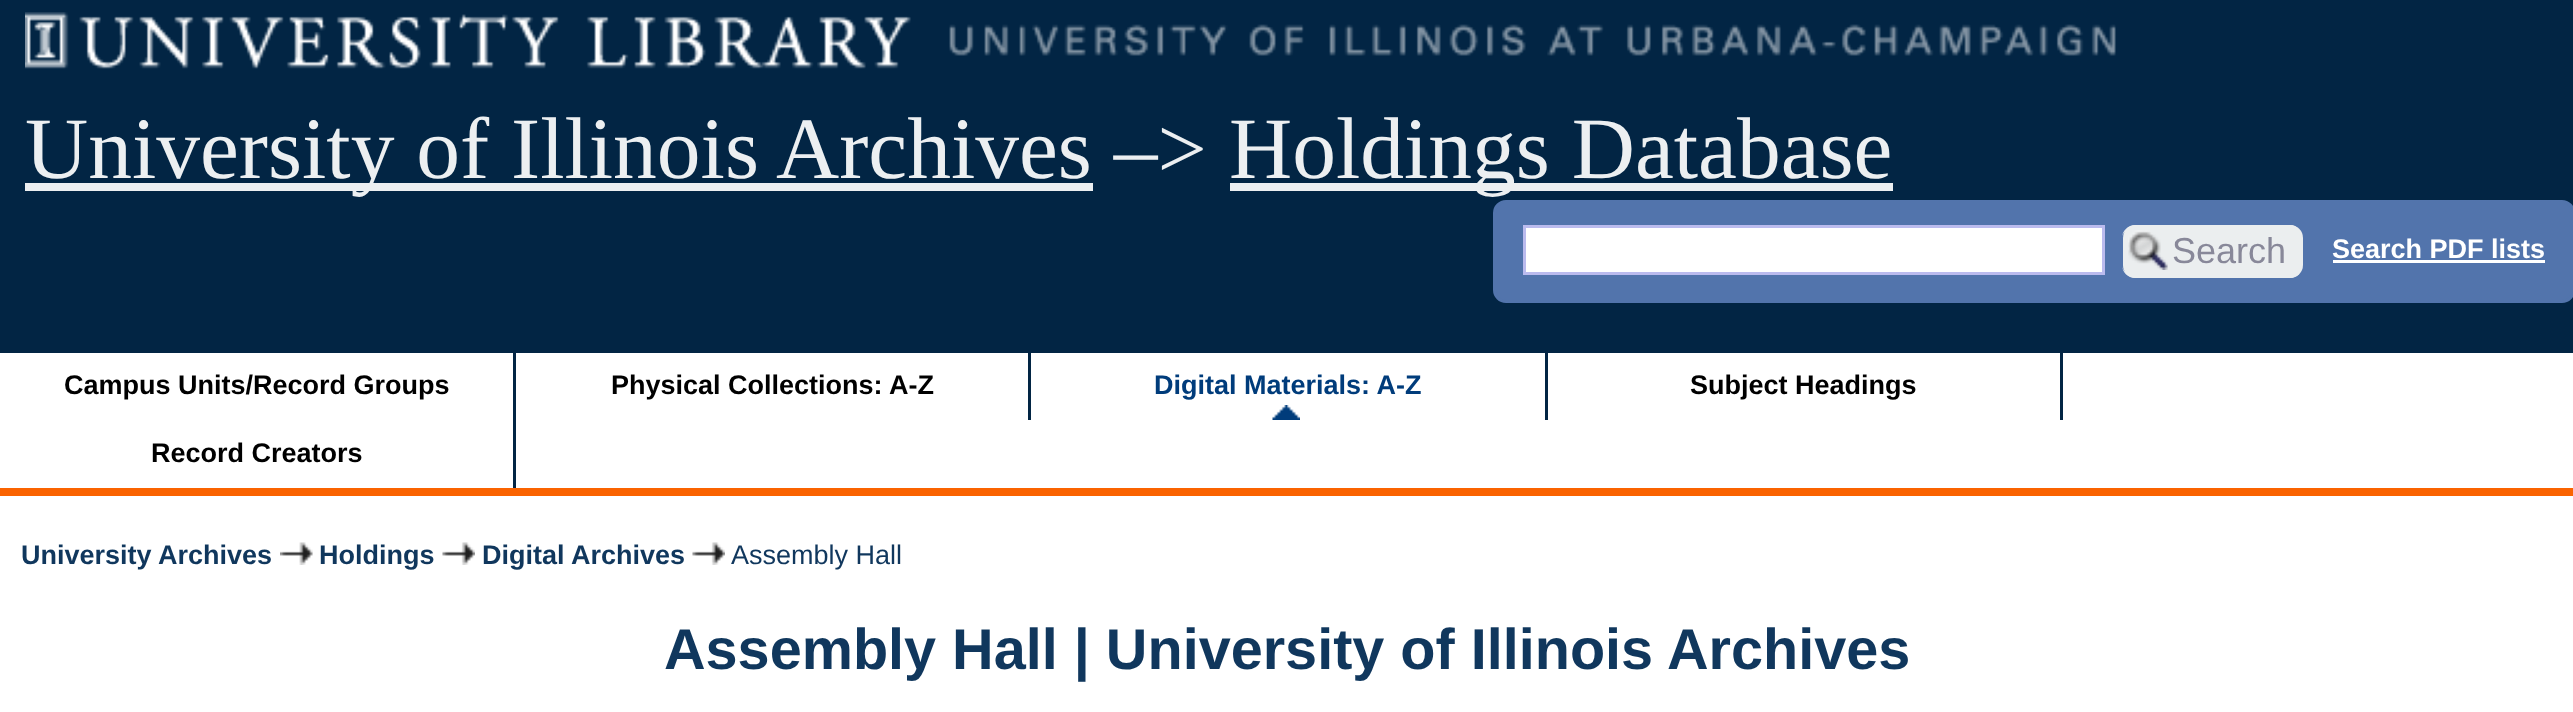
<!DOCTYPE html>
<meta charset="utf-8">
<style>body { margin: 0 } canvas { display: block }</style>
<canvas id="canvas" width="2573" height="712"></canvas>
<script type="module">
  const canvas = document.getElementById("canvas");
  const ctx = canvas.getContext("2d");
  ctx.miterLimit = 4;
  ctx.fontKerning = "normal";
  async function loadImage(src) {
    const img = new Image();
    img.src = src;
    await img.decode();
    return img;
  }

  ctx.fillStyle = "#ffffff";
  ctx.fillRect(0, 0, 2573, 712);
  ctx.fillStyle = "#022544";
  ctx.fillRect(0, 0, 2573, 353);
  ctx.drawImage(await loadImage("img1.png"), 25, 12, 2091, 57);
  ctx.fillStyle = "#fa6300";
  ctx.fillRect(0, 488, 2573, 8);
  ctx.fillStyle = "#eceff1";
  ctx.fillRect(25, 183, 1068, 8);
  ctx.font = "87.5px Liberation Serif";
  ctx.fillText("University of Illinois Archives –>", 25, 178);
  ctx.fillRect(1230, 183, 663, 8);
  ctx.fillText("Holdings Database", 1229, 178);
  ctx.fillStyle = "#5274ac";
  ctx.beginPath();
  ctx.roundRect(1494.5, 201.5, 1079, 100, 11.5);
  ctx.fill();
  ctx.strokeStyle = "#5274ac";
  ctx.lineWidth = 3;
  ctx.stroke();
  ctx.fillStyle = "#ffffff";
  ctx.beginPath();
  ctx.rect(1524.5, 226.5, 579, 47);
  ctx.fill();
  ctx.strokeStyle = "#bbbbee";
  ctx.stroke();
  ctx.fillStyle = "#ebeeef";
  ctx.beginPath();
  ctx.roundRect(2123, 225, 180, 53, 13);
  ctx.fill();
  ctx.drawImage(await loadImage("img2.png"), 2128, 230, 40, 40);
  ctx.beginPath();
  ctx.moveTo(2135, 225);
  ctx.lineTo(2290, 225);
  ctx.bezierCurveTo(2297, 225, 2302, 231, 2302, 238);
  ctx.lineTo(2302, 265);
  ctx.bezierCurveTo(2302, 272, 2297, 278, 2290, 278);
  ctx.lineTo(2135, 278);
  ctx.bezierCurveTo(2128, 278, 2122, 272, 2122, 265);
  ctx.lineTo(2122, 238);
  ctx.bezierCurveTo(2122, 231, 2128, 225, 2135, 225);
  ctx.closePath();
  ctx.moveTo(2135, 228);
  ctx.lineTo(2290, 228);
  ctx.bezierCurveTo(2296, 228, 2300, 232, 2300, 238);
  ctx.lineTo(2300, 265);
  ctx.bezierCurveTo(2300, 271, 2296, 275, 2290, 275);
  ctx.lineTo(2135, 275);
  ctx.bezierCurveTo(2128, 275, 2122, 271, 2122, 265);
  ctx.lineTo(2122, 238);
  ctx.bezierCurveTo(2122, 232, 2128, 228, 2135, 228);
  ctx.closePath();
  ctx.fill("evenodd");
  ctx.font = "36px Liberation Sans";
  ctx.fillStyle = "#888899";
  ctx.fillText("Search", 2172, 263);
  ctx.font = "bold 27px Liberation Sans";
  ctx.fillStyle = "#ffffff";
  ctx.fillText("Search PDF lists", 2332, 258);
  ctx.fillRect(2333, 260, 212, 3);
  ctx.fillStyle = "#022544";
  ctx.fillRect(513, 353, 3, 135);
  ctx.fillStyle = "#000000";
  ctx.fillText("Campus Units/Record Groups", 64, 394);
  ctx.fillStyle = "#022544";
  ctx.fillRect(1028, 353, 3, 67);
  ctx.fillStyle = "#000000";
  ctx.fillText("Physical Collections: A-Z", 611, 394);
  ctx.drawImage(await loadImage("img3.png"), 1272, 405, 28, 15);
  ctx.fillStyle = "#022544";
  ctx.fillRect(1545, 353, 3, 67);
  ctx.fillStyle = "#003c7b";
  ctx.fillText("Digital Materials: A-Z", 1154, 394);
  ctx.fillStyle = "#022544";
  ctx.fillRect(2060, 353, 3, 67);
  ctx.fillStyle = "#000000";
  ctx.fillText("Subject Headings", 1690, 394);
  ctx.fillText("Record Creators", 151, 462);
  ctx.fillStyle = "#10375d";
  ctx.fillText("University Archives", 21, 564);
  ctx.drawImage(await loadImage("img4.png"), 280, 542, 33, 23);
  ctx.fillText("Holdings", 319, 564);
  ctx.drawImage(await loadImage("img5.png"), 442, 542, 33, 23);
  ctx.fillText("Digital Archives", 482, 564);
  ctx.drawImage(await loadImage("img5.png"), 692, 542, 33, 23);
  ctx.font = "27px Liberation Sans";
  ctx.fillText("Assembly Hall", 731, 564);
  ctx.font = "bold 57.6px Liberation Sans";
  ctx.fillText("Assembly Hall | University of Illinois Archives", 664, 669);
</script>
